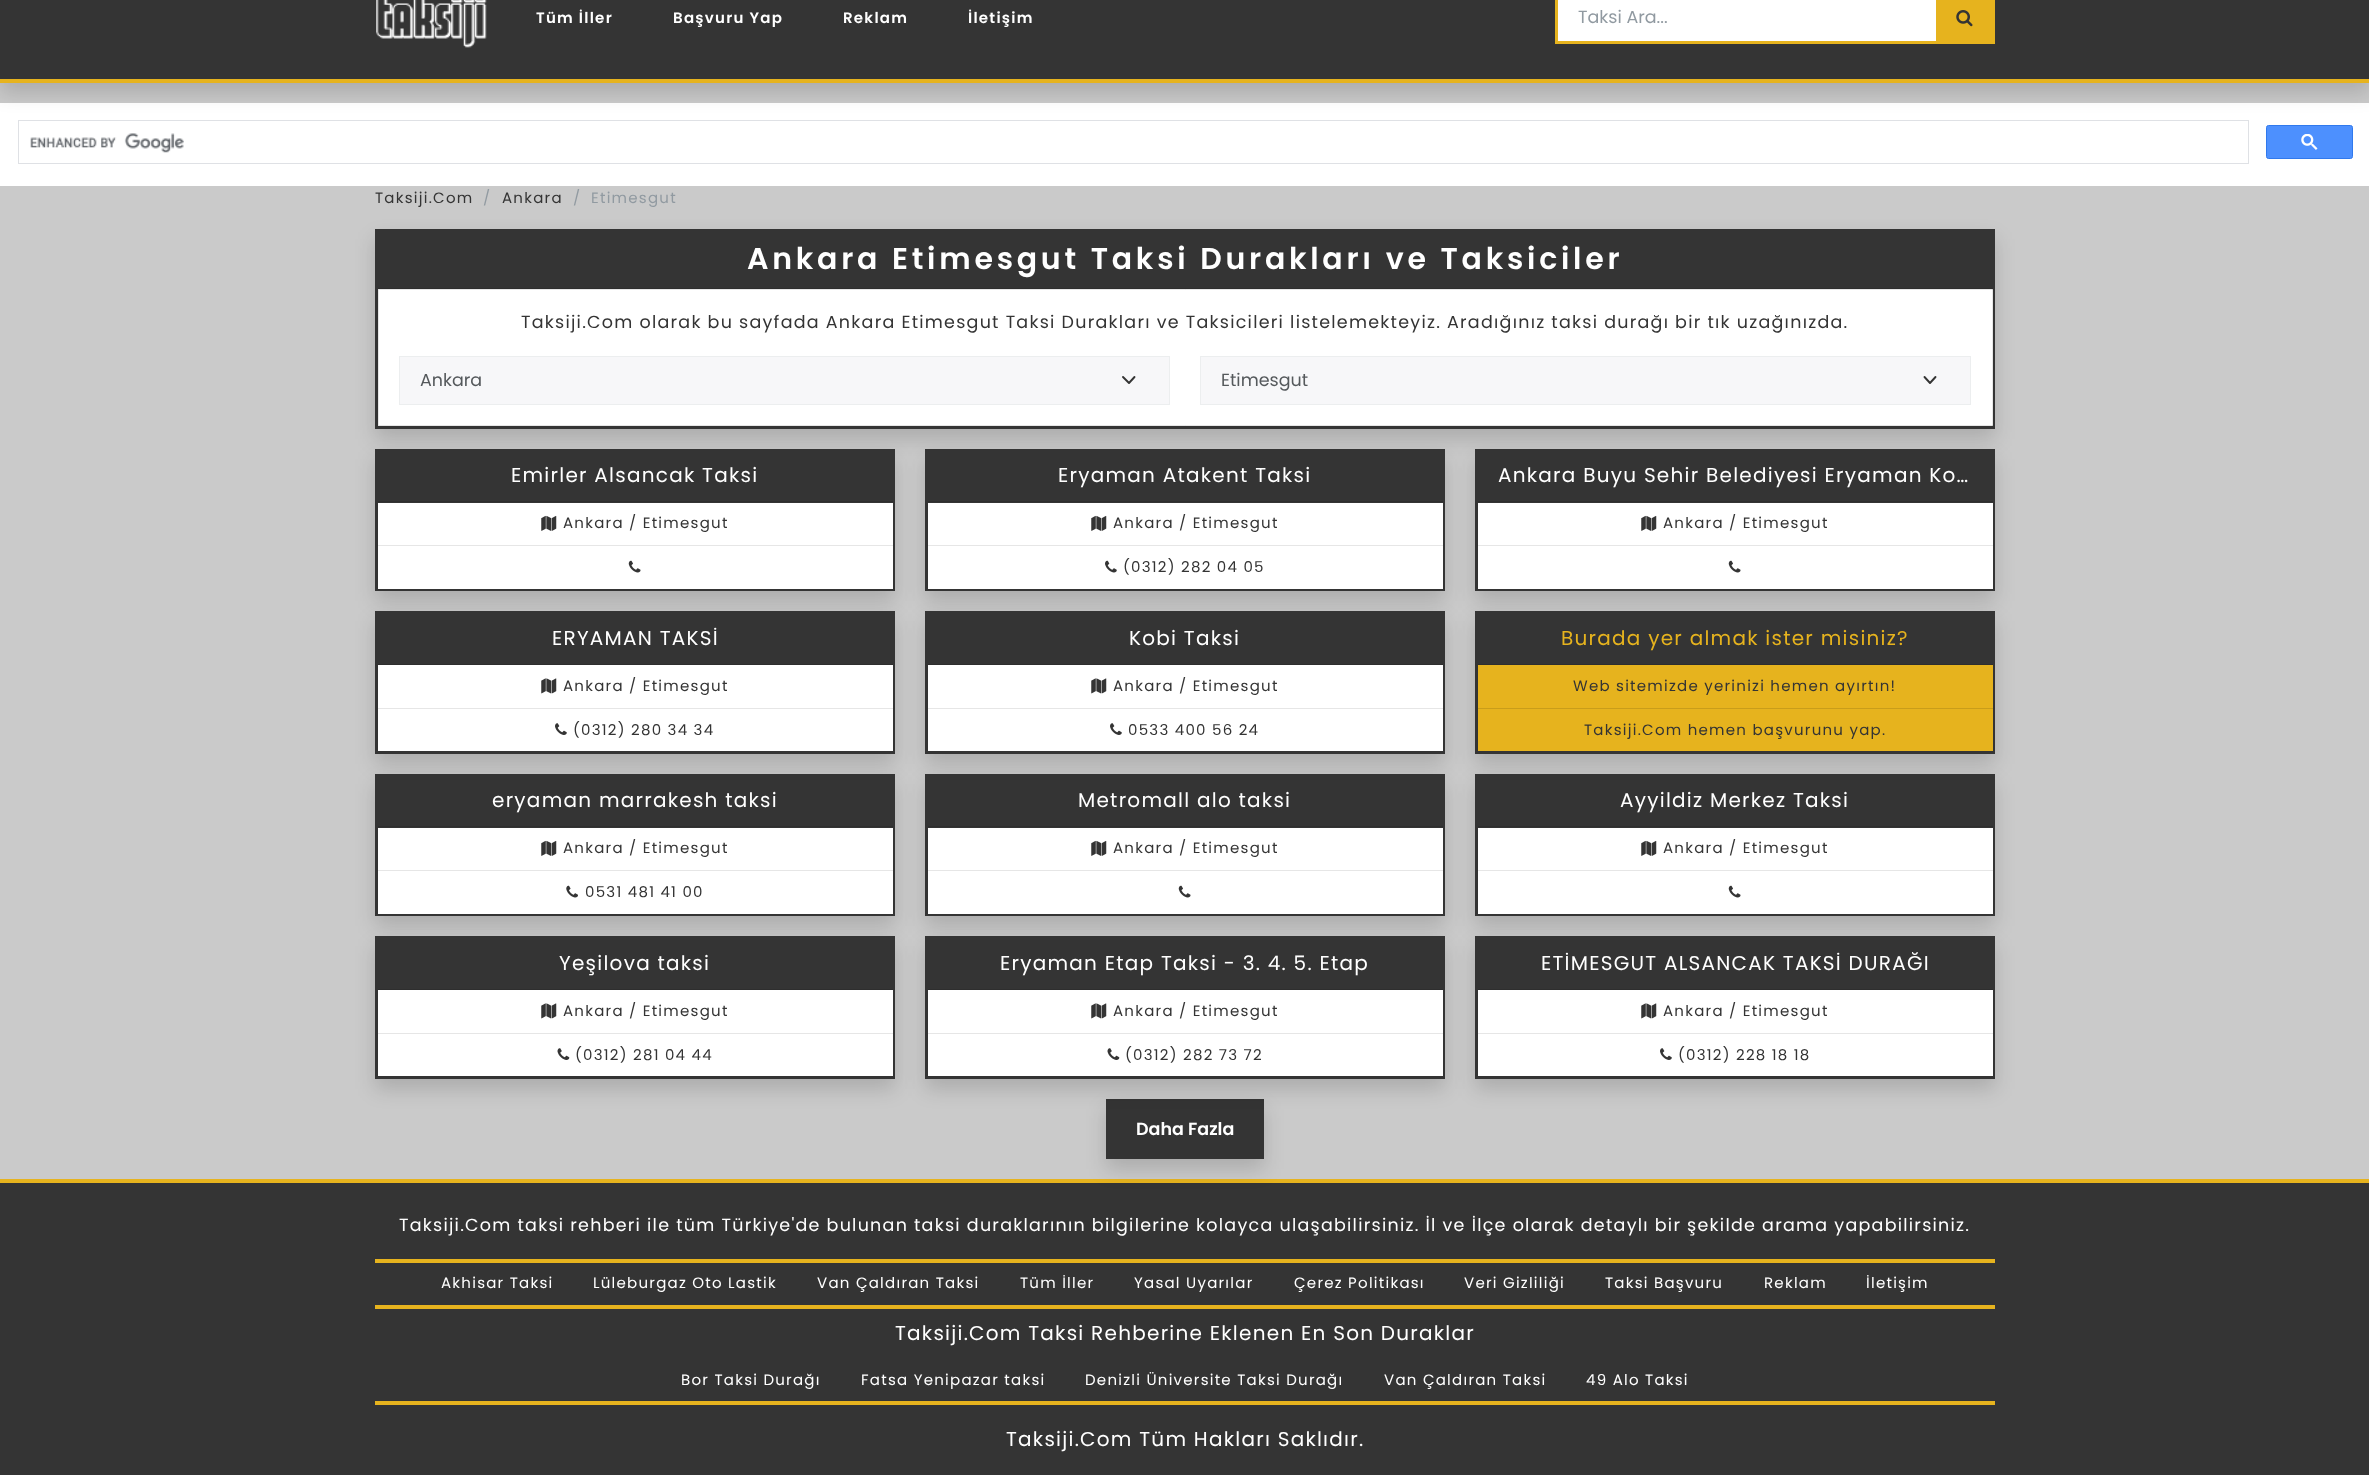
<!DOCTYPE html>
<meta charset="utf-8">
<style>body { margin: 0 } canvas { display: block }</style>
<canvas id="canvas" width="2369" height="1475"></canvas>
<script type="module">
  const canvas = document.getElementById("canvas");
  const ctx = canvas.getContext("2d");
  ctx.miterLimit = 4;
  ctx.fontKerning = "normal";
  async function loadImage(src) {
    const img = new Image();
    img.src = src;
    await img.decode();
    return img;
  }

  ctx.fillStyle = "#cacaca";
  ctx.fillRect(0, 0, 2369, 1475);
  ctx.fillStyle = "#ffffff";
  ctx.fillRect(0, 103, 2369, 83);
  ctx.strokeStyle = "#dfe1e5";
  ctx.strokeRect(18.5, 120.5, 2230, 43);
  ctx.fillStyle = "rgba(0, 0, 0, 0.15)";
  ctx.filter = "blur(10px)";
  ctx.beginPath();
  ctx.rect(0, -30, 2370, 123);
  ctx.fill();
  ctx.filter = "none";
  ctx.fillStyle = "#343434";
  ctx.fillRect(0, 0, 2369, 79);
  ctx.fillStyle = "#e6b31e";
  ctx.fillRect(0, 79, 2369, 4);
  ctx.drawImage(await loadImage("img1.png"), 376, 0, 111, 48);
  ctx.letterSpacing = "1.25px";
  ctx.font = "600 15px Poppins";
  ctx.fillStyle = "#ffffff";
  ctx.fillText("Tüm İller", 536, 23);
  ctx.fillText("Başvuru Yap", 673, 23);
  ctx.fillText("Reklam", 843, 23);
  ctx.fillText("İletişim", 968, 23);
  ctx.strokeStyle = "#e6b31e";
  ctx.lineWidth = 3;
  ctx.strokeRect(1556.5, -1.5, 437, 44);
  ctx.fillRect(1558, 0, 378, 41);
  ctx.letterSpacing = "0px";
  ctx.font = "17.5px Poppins";
  ctx.fillStyle = "#919aa1";
  ctx.fillText("Taksi Ara...", 1578, 23);
  ctx.fillStyle = "#e6b31e";
  ctx.fillRect(1936, 0, 56, 41);
  ctx.drawImage(await loadImage("img2.png"), 1956, 10, 17, 17);
  ctx.drawImage(await loadImage("img3.png"), 30, 133, 154, 20);
  ctx.fillStyle = "#4d90fe";
  ctx.beginPath();
  ctx.roundRect(2266.5, 125.5, 86, 33, 2);
  ctx.fill();
  ctx.strokeStyle = "#3079ed";
  ctx.lineWidth = 1;
  ctx.stroke();
  ctx.drawImage(await loadImage("img4.png"), 2301, 134, 17, 16);
  ctx.letterSpacing = "1.25px";
  ctx.font = "15px Poppins";
  ctx.fillStyle = "#343434";
  ctx.fillText("Taksiji.Com", 375, 203);
  ctx.fillStyle = "#919aa1";
  ctx.fillText("/", 483, 203);
  ctx.fillStyle = "#343434";
  ctx.fillText("Ankara", 502, 203);
  ctx.fillStyle = "#919aa1";
  ctx.fillText("/", 573, 203);
  ctx.fillText("Etimesgut", 591, 203);
  ctx.fillStyle = "rgba(0, 0, 0, 0.15)";
  ctx.filter = "blur(10px)";
  ctx.beginPath();
  ctx.rect(375, 239, 1620, 200);
  ctx.fill();
  ctx.filter = "none";
  ctx.strokeStyle = "#343434";
  ctx.lineWidth = 3;
  ctx.strokeRect(376.5, 230.5, 1617, 197);
  ctx.fillStyle = "#343434";
  ctx.fillRect(378, 232, 1614, 56);
  ctx.fillStyle = "#2e2e2e";
  ctx.fillRect(378, 288, 1615, 1);
  ctx.letterSpacing = "3.75px";
  ctx.font = "600 30px Poppins";
  ctx.fillStyle = "#ffffff";
  ctx.fillText("Ankara Etimesgut Taksi Durakları ve Taksiciler", 747, 269);
  ctx.beginPath();
  ctx.rect(378.5, 289.5, 1614, 136);
  ctx.fill();
  ctx.strokeStyle = "#e6e6e6";
  ctx.lineWidth = 1;
  ctx.stroke();
  ctx.letterSpacing = "1.25px";
  ctx.font = "17.5px Poppins";
  ctx.fillStyle = "#343434";
  ctx.fillText("Taksiji.Com olarak bu sayfada Ankara Etimesgut Taksi Durakları ve Taksicileri listelemekteyiz. Aradığınız taksi durağı bir tık uzağınızda.", 521, 328);
  ctx.fillStyle = "#f7f7f9";
  ctx.fillRect(400, 357, 769, 47);
  ctx.beginPath();
  ctx.moveTo(1123, 377);
  ctx.lineTo(1129, 383);
  ctx.lineTo(1134.5, 377);
  ctx.strokeStyle = "#343434";
  ctx.lineWidth = 1.9;
  ctx.lineCap = "round";
  ctx.lineJoin = "round";
  ctx.stroke();
  ctx.strokeStyle = "#eceeef";
  ctx.lineWidth = 1;
  ctx.lineJoin = "miter";
  ctx.strokeRect(399.5, 356.5, 770, 48);
  ctx.letterSpacing = "0px";
  ctx.fillStyle = "#55595c";
  ctx.fillText("Ankara", 420, 386);
  ctx.fillStyle = "#f7f7f9";
  ctx.fillRect(1201, 357, 769, 47);
  ctx.beginPath();
  ctx.moveTo(1924.5, 377);
  ctx.lineTo(1930, 383);
  ctx.lineTo(1935.5, 377);
  ctx.strokeStyle = "#343434";
  ctx.lineWidth = 1.9;
  ctx.lineJoin = "round";
  ctx.stroke();
  ctx.strokeStyle = "#eceeef";
  ctx.lineWidth = 1;
  ctx.lineJoin = "miter";
  ctx.strokeRect(1200.5, 356.5, 770, 48);
  ctx.fillStyle = "#55595c";
  ctx.fillText("Etimesgut", 1221, 386);
  ctx.fillStyle = "rgba(0, 0, 0, 0.15)";
  ctx.filter = "blur(10px)";
  ctx.beginPath();
  ctx.rect(375, 459, 520, 142);
  ctx.fill();
  ctx.filter = "none";
  ctx.strokeStyle = "#343434";
  ctx.lineWidth = 3;
  ctx.strokeRect(376.5, 450.5, 517, 139);
  ctx.fillStyle = "#343434";
  ctx.fillRect(378, 452, 514, 51);
  ctx.fillStyle = "#2e2e2e";
  ctx.fillRect(378, 501, 515, 1);
  ctx.letterSpacing = "1.25px";
  ctx.font = "20px Poppins";
  ctx.fillStyle = "#ffffff";
  ctx.fillText("Emirler Alsancak Taksi", 511, 482);
  ctx.fillRect(378, 503, 515, 42);
  ctx.fillStyle = "#e6e6e6";
  ctx.fillRect(378, 545, 515, 1);
  ctx.drawImage(await loadImage("img5.png"), 541, 515, 16, 16);
  ctx.font = "15px Poppins";
  ctx.fillStyle = "#343434";
  ctx.fillText("Ankara / Etimesgut", 563, 528);
  ctx.fillStyle = "#ffffff";
  ctx.fillRect(378, 546, 515, 43);
  ctx.drawImage(await loadImage("img6.png"), 628, 560, 13, 13);
  ctx.fillStyle = "rgba(0, 0, 0, 0.15)";
  ctx.filter = "blur(10px)";
  ctx.beginPath();
  ctx.rect(925, 459, 520, 142);
  ctx.fill();
  ctx.filter = "none";
  ctx.strokeRect(926.5, 450.5, 517, 139);
  ctx.fillStyle = "#343434";
  ctx.fillRect(928, 452, 514, 51);
  ctx.fillStyle = "#2e2e2e";
  ctx.fillRect(928, 501, 515, 1);
  ctx.font = "20px Poppins";
  ctx.fillStyle = "#ffffff";
  ctx.fillText("Eryaman Atakent Taksi", 1058, 482);
  ctx.fillRect(928, 503, 515, 42);
  ctx.fillStyle = "#e6e6e6";
  ctx.fillRect(928, 545, 515, 1);
  ctx.drawImage(await loadImage("img5.png"), 1091, 515, 16, 16);
  ctx.font = "15px Poppins";
  ctx.fillStyle = "#343434";
  ctx.fillText("Ankara / Etimesgut", 1113, 528);
  ctx.fillStyle = "#ffffff";
  ctx.fillRect(928, 546, 515, 43);
  ctx.drawImage(await loadImage("img7.png"), 1105, 560, 12, 13);
  ctx.fillStyle = "#343434";
  ctx.fillText("(0312) 282 04 05", 1123, 572);
  ctx.fillStyle = "rgba(0, 0, 0, 0.15)";
  ctx.filter = "blur(10px)";
  ctx.beginPath();
  ctx.rect(1475, 459, 520, 142);
  ctx.fill();
  ctx.filter = "none";
  ctx.strokeRect(1476.5, 450.5, 517, 139);
  ctx.fillStyle = "#343434";
  ctx.fillRect(1478, 452, 514, 51);
  ctx.fillStyle = "#2e2e2e";
  ctx.fillRect(1478, 501, 515, 1);
  ctx.font = "20px Poppins";
  ctx.fillStyle = "#ffffff";
  ctx.fillText("Ankara Buyu Sehir Belediyesi Eryaman Ko…", 1498, 482);
  ctx.fillRect(1478, 503, 515, 42);
  ctx.fillStyle = "#e6e6e6";
  ctx.fillRect(1478, 545, 515, 1);
  ctx.drawImage(await loadImage("img5.png"), 1641, 515, 16, 16);
  ctx.font = "15px Poppins";
  ctx.fillStyle = "#343434";
  ctx.fillText("Ankara / Etimesgut", 1663, 528);
  ctx.fillStyle = "#ffffff";
  ctx.fillRect(1478, 546, 515, 43);
  ctx.drawImage(await loadImage("img6.png"), 1728, 560, 13, 13);
  ctx.fillStyle = "rgba(0, 0, 0, 0.15)";
  ctx.filter = "blur(10px)";
  ctx.beginPath();
  ctx.rect(375, 621, 520, 143);
  ctx.fill();
  ctx.filter = "none";
  ctx.strokeRect(376.5, 612.5, 517, 140);
  ctx.fillStyle = "#343434";
  ctx.fillRect(378, 614, 514, 50);
  ctx.fillStyle = "#2e2e2e";
  ctx.fillRect(378, 664, 515, 1);
  ctx.font = "20px Poppins";
  ctx.fillStyle = "#ffffff";
  ctx.fillText("ERYAMAN TAKSİ", 552, 645);
  ctx.fillRect(378, 665, 515, 43);
  ctx.fillStyle = "#e6e6e6";
  ctx.fillRect(378, 708, 515, 1);
  ctx.drawImage(await loadImage("img8.png"), 541, 678, 16, 16);
  ctx.font = "15px Poppins";
  ctx.fillStyle = "#343434";
  ctx.fillText("Ankara / Etimesgut", 563, 691);
  ctx.fillStyle = "#ffffff";
  ctx.fillRect(378, 709, 515, 42);
  ctx.drawImage(await loadImage("img9.png"), 555, 723, 12, 12);
  ctx.fillStyle = "#343434";
  ctx.fillText("(0312) 280 34 34", 573, 735);
  ctx.fillStyle = "rgba(0, 0, 0, 0.15)";
  ctx.filter = "blur(10px)";
  ctx.beginPath();
  ctx.rect(925, 621, 520, 143);
  ctx.fill();
  ctx.filter = "none";
  ctx.strokeRect(926.5, 612.5, 517, 140);
  ctx.fillStyle = "#343434";
  ctx.fillRect(928, 614, 514, 50);
  ctx.fillStyle = "#2e2e2e";
  ctx.fillRect(928, 664, 515, 1);
  ctx.font = "20px Poppins";
  ctx.fillStyle = "#ffffff";
  ctx.fillText("Kobi Taksi", 1129, 645);
  ctx.fillRect(928, 665, 515, 43);
  ctx.fillStyle = "#e6e6e6";
  ctx.fillRect(928, 708, 515, 1);
  ctx.drawImage(await loadImage("img8.png"), 1091, 678, 16, 16);
  ctx.font = "15px Poppins";
  ctx.fillStyle = "#343434";
  ctx.fillText("Ankara / Etimesgut", 1113, 691);
  ctx.fillStyle = "#ffffff";
  ctx.fillRect(928, 709, 515, 42);
  ctx.drawImage(await loadImage("img9.png"), 1110, 723, 12, 12);
  ctx.fillStyle = "#343434";
  ctx.fillText("0533 400 56 24", 1128, 735);
  ctx.fillStyle = "rgba(0, 0, 0, 0.15)";
  ctx.filter = "blur(10px)";
  ctx.beginPath();
  ctx.rect(1475, 621, 520, 143);
  ctx.fill();
  ctx.filter = "none";
  ctx.strokeRect(1476.5, 612.5, 517, 140);
  ctx.fillStyle = "#343434";
  ctx.fillRect(1478, 614, 514, 50);
  ctx.fillStyle = "#2e2e2e";
  ctx.fillRect(1478, 664, 515, 1);
  ctx.font = "20px Poppins";
  ctx.fillStyle = "#e6b31e";
  ctx.fillText("Burada yer almak ister misiniz?", 1561, 645);
  ctx.fillRect(1478, 665, 515, 43);
  ctx.fillStyle = "#c99d1a";
  ctx.fillRect(1478, 708, 515, 1);
  ctx.font = "15px Poppins";
  ctx.fillStyle = "#343434";
  ctx.fillText("Web sitemizde yerinizi hemen ayırtın!", 1573, 691);
  ctx.fillStyle = "#e6b31e";
  ctx.fillRect(1478, 709, 515, 42);
  ctx.fillStyle = "#343434";
  ctx.fillText("Taksiji.Com hemen başvurunu yap.", 1584, 735);
  ctx.fillStyle = "rgba(0, 0, 0, 0.15)";
  ctx.filter = "blur(10px)";
  ctx.beginPath();
  ctx.rect(375, 784, 520, 142);
  ctx.fill();
  ctx.filter = "none";
  ctx.strokeRect(376.5, 775.5, 517, 139);
  ctx.fillStyle = "#343434";
  ctx.fillRect(378, 777, 514, 51);
  ctx.fillStyle = "#2e2e2e";
  ctx.fillRect(378, 826, 515, 1);
  ctx.font = "20px Poppins";
  ctx.fillStyle = "#ffffff";
  ctx.fillText("eryaman marrakesh taksi", 492, 807);
  ctx.fillRect(378, 828, 515, 42);
  ctx.fillStyle = "#e6e6e6";
  ctx.fillRect(378, 870, 515, 1);
  ctx.drawImage(await loadImage("img5.png"), 541, 840, 16, 16);
  ctx.font = "15px Poppins";
  ctx.fillStyle = "#343434";
  ctx.fillText("Ankara / Etimesgut", 563, 853);
  ctx.fillStyle = "#ffffff";
  ctx.fillRect(378, 871, 515, 43);
  ctx.drawImage(await loadImage("img10.png"), 566, 885, 12, 13);
  ctx.fillStyle = "#343434";
  ctx.fillText("0531 481 41 00", 585, 897);
  ctx.fillStyle = "rgba(0, 0, 0, 0.15)";
  ctx.filter = "blur(10px)";
  ctx.beginPath();
  ctx.rect(925, 784, 520, 142);
  ctx.fill();
  ctx.filter = "none";
  ctx.strokeRect(926.5, 775.5, 517, 139);
  ctx.fillStyle = "#343434";
  ctx.fillRect(928, 777, 514, 51);
  ctx.fillStyle = "#2e2e2e";
  ctx.fillRect(928, 826, 515, 1);
  ctx.font = "20px Poppins";
  ctx.fillStyle = "#ffffff";
  ctx.fillText("Metromall alo taksi", 1078, 807);
  ctx.fillRect(928, 828, 515, 42);
  ctx.fillStyle = "#e6e6e6";
  ctx.fillRect(928, 870, 515, 1);
  ctx.drawImage(await loadImage("img5.png"), 1091, 840, 16, 16);
  ctx.font = "15px Poppins";
  ctx.fillStyle = "#343434";
  ctx.fillText("Ankara / Etimesgut", 1113, 853);
  ctx.fillStyle = "#ffffff";
  ctx.fillRect(928, 871, 515, 43);
  ctx.drawImage(await loadImage("img6.png"), 1178, 885, 13, 13);
  ctx.fillStyle = "rgba(0, 0, 0, 0.15)";
  ctx.filter = "blur(10px)";
  ctx.beginPath();
  ctx.rect(1475, 784, 520, 142);
  ctx.fill();
  ctx.filter = "none";
  ctx.strokeRect(1476.5, 775.5, 517, 139);
  ctx.fillStyle = "#343434";
  ctx.fillRect(1478, 777, 514, 51);
  ctx.fillStyle = "#2e2e2e";
  ctx.fillRect(1478, 826, 515, 1);
  ctx.font = "20px Poppins";
  ctx.fillStyle = "#ffffff";
  ctx.fillText("Ayyildiz Merkez Taksi", 1620, 807);
  ctx.fillRect(1478, 828, 515, 42);
  ctx.fillStyle = "#e6e6e6";
  ctx.fillRect(1478, 870, 515, 1);
  ctx.drawImage(await loadImage("img5.png"), 1641, 840, 16, 16);
  ctx.font = "15px Poppins";
  ctx.fillStyle = "#343434";
  ctx.fillText("Ankara / Etimesgut", 1663, 853);
  ctx.fillStyle = "#ffffff";
  ctx.fillRect(1478, 871, 515, 43);
  ctx.drawImage(await loadImage("img6.png"), 1728, 885, 13, 13);
  ctx.fillStyle = "rgba(0, 0, 0, 0.15)";
  ctx.filter = "blur(10px)";
  ctx.beginPath();
  ctx.rect(375, 946, 520, 143);
  ctx.fill();
  ctx.filter = "none";
  ctx.strokeRect(376.5, 937.5, 517, 140);
  ctx.fillStyle = "#343434";
  ctx.fillRect(378, 939, 514, 50);
  ctx.fillStyle = "#2e2e2e";
  ctx.fillRect(378, 989, 515, 1);
  ctx.font = "20px Poppins";
  ctx.fillStyle = "#ffffff";
  ctx.fillText("Yeşilova taksi", 559, 970);
  ctx.fillRect(378, 990, 515, 43);
  ctx.fillStyle = "#e6e6e6";
  ctx.fillRect(378, 1033, 515, 1);
  ctx.drawImage(await loadImage("img8.png"), 541, 1003, 16, 16);
  ctx.font = "15px Poppins";
  ctx.fillStyle = "#343434";
  ctx.fillText("Ankara / Etimesgut", 563, 1016);
  ctx.fillStyle = "#ffffff";
  ctx.fillRect(378, 1034, 515, 42);
  ctx.drawImage(await loadImage("img11.png"), 557, 1048, 13, 12);
  ctx.fillStyle = "#343434";
  ctx.fillText("(0312) 281 04 44", 575, 1060);
  ctx.fillRect(0, 1183, 2369, 292);
  ctx.fillStyle = "#e6b31e";
  ctx.fillRect(0, 1179, 2369, 4);
  ctx.fillStyle = "rgba(0, 0, 0, 0.15)";
  ctx.filter = "blur(10px)";
  ctx.beginPath();
  ctx.rect(1106, 1109, 158, 60);
  ctx.fill();
  ctx.filter = "none";
  ctx.fillStyle = "#343434";
  ctx.fillRect(1106, 1099, 158, 60);
  ctx.fillStyle = "rgba(0, 0, 0, 0.15)";
  ctx.filter = "blur(10px)";
  ctx.beginPath();
  ctx.rect(925, 946, 520, 143);
  ctx.fill();
  ctx.filter = "none";
  ctx.strokeRect(926.5, 937.5, 517, 140);
  ctx.fillStyle = "#343434";
  ctx.fillRect(928, 939, 514, 50);
  ctx.fillStyle = "#2e2e2e";
  ctx.fillRect(928, 989, 515, 1);
  ctx.font = "20px Poppins";
  ctx.fillStyle = "#ffffff";
  ctx.fillText("Eryaman Etap Taksi - 3. 4. 5. Etap", 1000, 970);
  ctx.fillRect(928, 990, 515, 43);
  ctx.fillStyle = "#e6e6e6";
  ctx.fillRect(928, 1033, 515, 1);
  ctx.drawImage(await loadImage("img8.png"), 1091, 1003, 16, 16);
  ctx.font = "15px Poppins";
  ctx.fillStyle = "#343434";
  ctx.fillText("Ankara / Etimesgut", 1113, 1016);
  ctx.fillStyle = "#ffffff";
  ctx.fillRect(928, 1034, 515, 42);
  ctx.drawImage(await loadImage("img11.png"), 1107, 1048, 13, 12);
  ctx.fillStyle = "#343434";
  ctx.fillText("(0312) 282 73 72", 1125, 1060);
  ctx.fillStyle = "rgba(0, 0, 0, 0.15)";
  ctx.filter = "blur(10px)";
  ctx.beginPath();
  ctx.rect(1475, 946, 520, 143);
  ctx.fill();
  ctx.filter = "none";
  ctx.strokeRect(1476.5, 937.5, 517, 140);
  ctx.fillStyle = "#343434";
  ctx.fillRect(1478, 939, 514, 50);
  ctx.fillStyle = "#2e2e2e";
  ctx.fillRect(1478, 989, 515, 1);
  ctx.font = "20px Poppins";
  ctx.fillStyle = "#ffffff";
  ctx.fillText("ETİMESGUT ALSANCAK TAKSİ DURAĞI", 1541, 970);
  ctx.fillRect(1478, 990, 515, 43);
  ctx.fillStyle = "#e6e6e6";
  ctx.fillRect(1478, 1033, 515, 1);
  ctx.drawImage(await loadImage("img8.png"), 1641, 1003, 16, 16);
  ctx.font = "15px Poppins";
  ctx.fillStyle = "#343434";
  ctx.fillText("Ankara / Etimesgut", 1663, 1016);
  ctx.fillStyle = "#ffffff";
  ctx.fillRect(1478, 1034, 515, 42);
  ctx.drawImage(await loadImage("img9.png"), 1660, 1048, 12, 12);
  ctx.fillStyle = "#343434";
  ctx.fillText("(0312) 228 18 18", 1678, 1060);
  ctx.letterSpacing = "0px";
  ctx.font = "600 17.5px Poppins";
  ctx.fillStyle = "#ffffff";
  ctx.fillText("Daha Fazla", 1136, 1135);
  ctx.letterSpacing = "1.25px";
  ctx.font = "17.5px Poppins";
  ctx.fillText("Taksiji.Com taksi rehberi ile tüm Türkiye'de bulunan taksi duraklarının bilgilerine kolayca ulaşabilirsiniz. İl ve İlçe olarak detaylı bir şekilde arama yapabilirsiniz.", 399, 1231);
  ctx.fillStyle = "#e6b31e";
  ctx.fillRect(375, 1259, 1620, 4);
  ctx.font = "15px Poppins";
  ctx.fillStyle = "#ffffff";
  ctx.fillText("Akhisar Taksi", 441, 1288);
  ctx.fillText("Lüleburgaz Oto Lastik", 593, 1288);
  ctx.fillText("Van Çaldıran Taksi", 817, 1288);
  ctx.fillText("Tüm İller", 1020, 1288);
  ctx.fillText("Yasal Uyarılar", 1134, 1288);
  ctx.fillText("Çerez Politikası", 1294, 1288);
  ctx.fillText("Veri Gizliliği", 1464, 1288);
  ctx.fillText("Taksi Başvuru", 1605, 1288);
  ctx.fillText("Reklam", 1764, 1288);
  ctx.fillText("İletişim", 1866, 1288);
  ctx.fillStyle = "#e6b31e";
  ctx.fillRect(375, 1305, 1620, 4);
  ctx.font = "20px Poppins";
  ctx.fillStyle = "#ffffff";
  ctx.fillText("Taksiji.Com Taksi Rehberine Eklenen En Son Duraklar", 895, 1340);
  ctx.font = "15px Poppins";
  ctx.fillText("Bor Taksi Durağı", 681, 1385);
  ctx.fillText("Fatsa Yenipazar taksi", 861, 1385);
  ctx.fillText("Denizli Üniversite Taksi Durağı", 1085, 1385);
  ctx.fillText("Van Çaldıran Taksi", 1384, 1385);
  ctx.fillText("49 Alo Taksi", 1586, 1385);
  ctx.fillStyle = "#e6b31e";
  ctx.fillRect(375, 1401, 1620, 4);
  ctx.font = "20px Poppins";
  ctx.fillStyle = "#ffffff";
  ctx.fillText("Taksiji.Com Tüm Hakları Saklıdır.", 1006, 1446);
</script>
